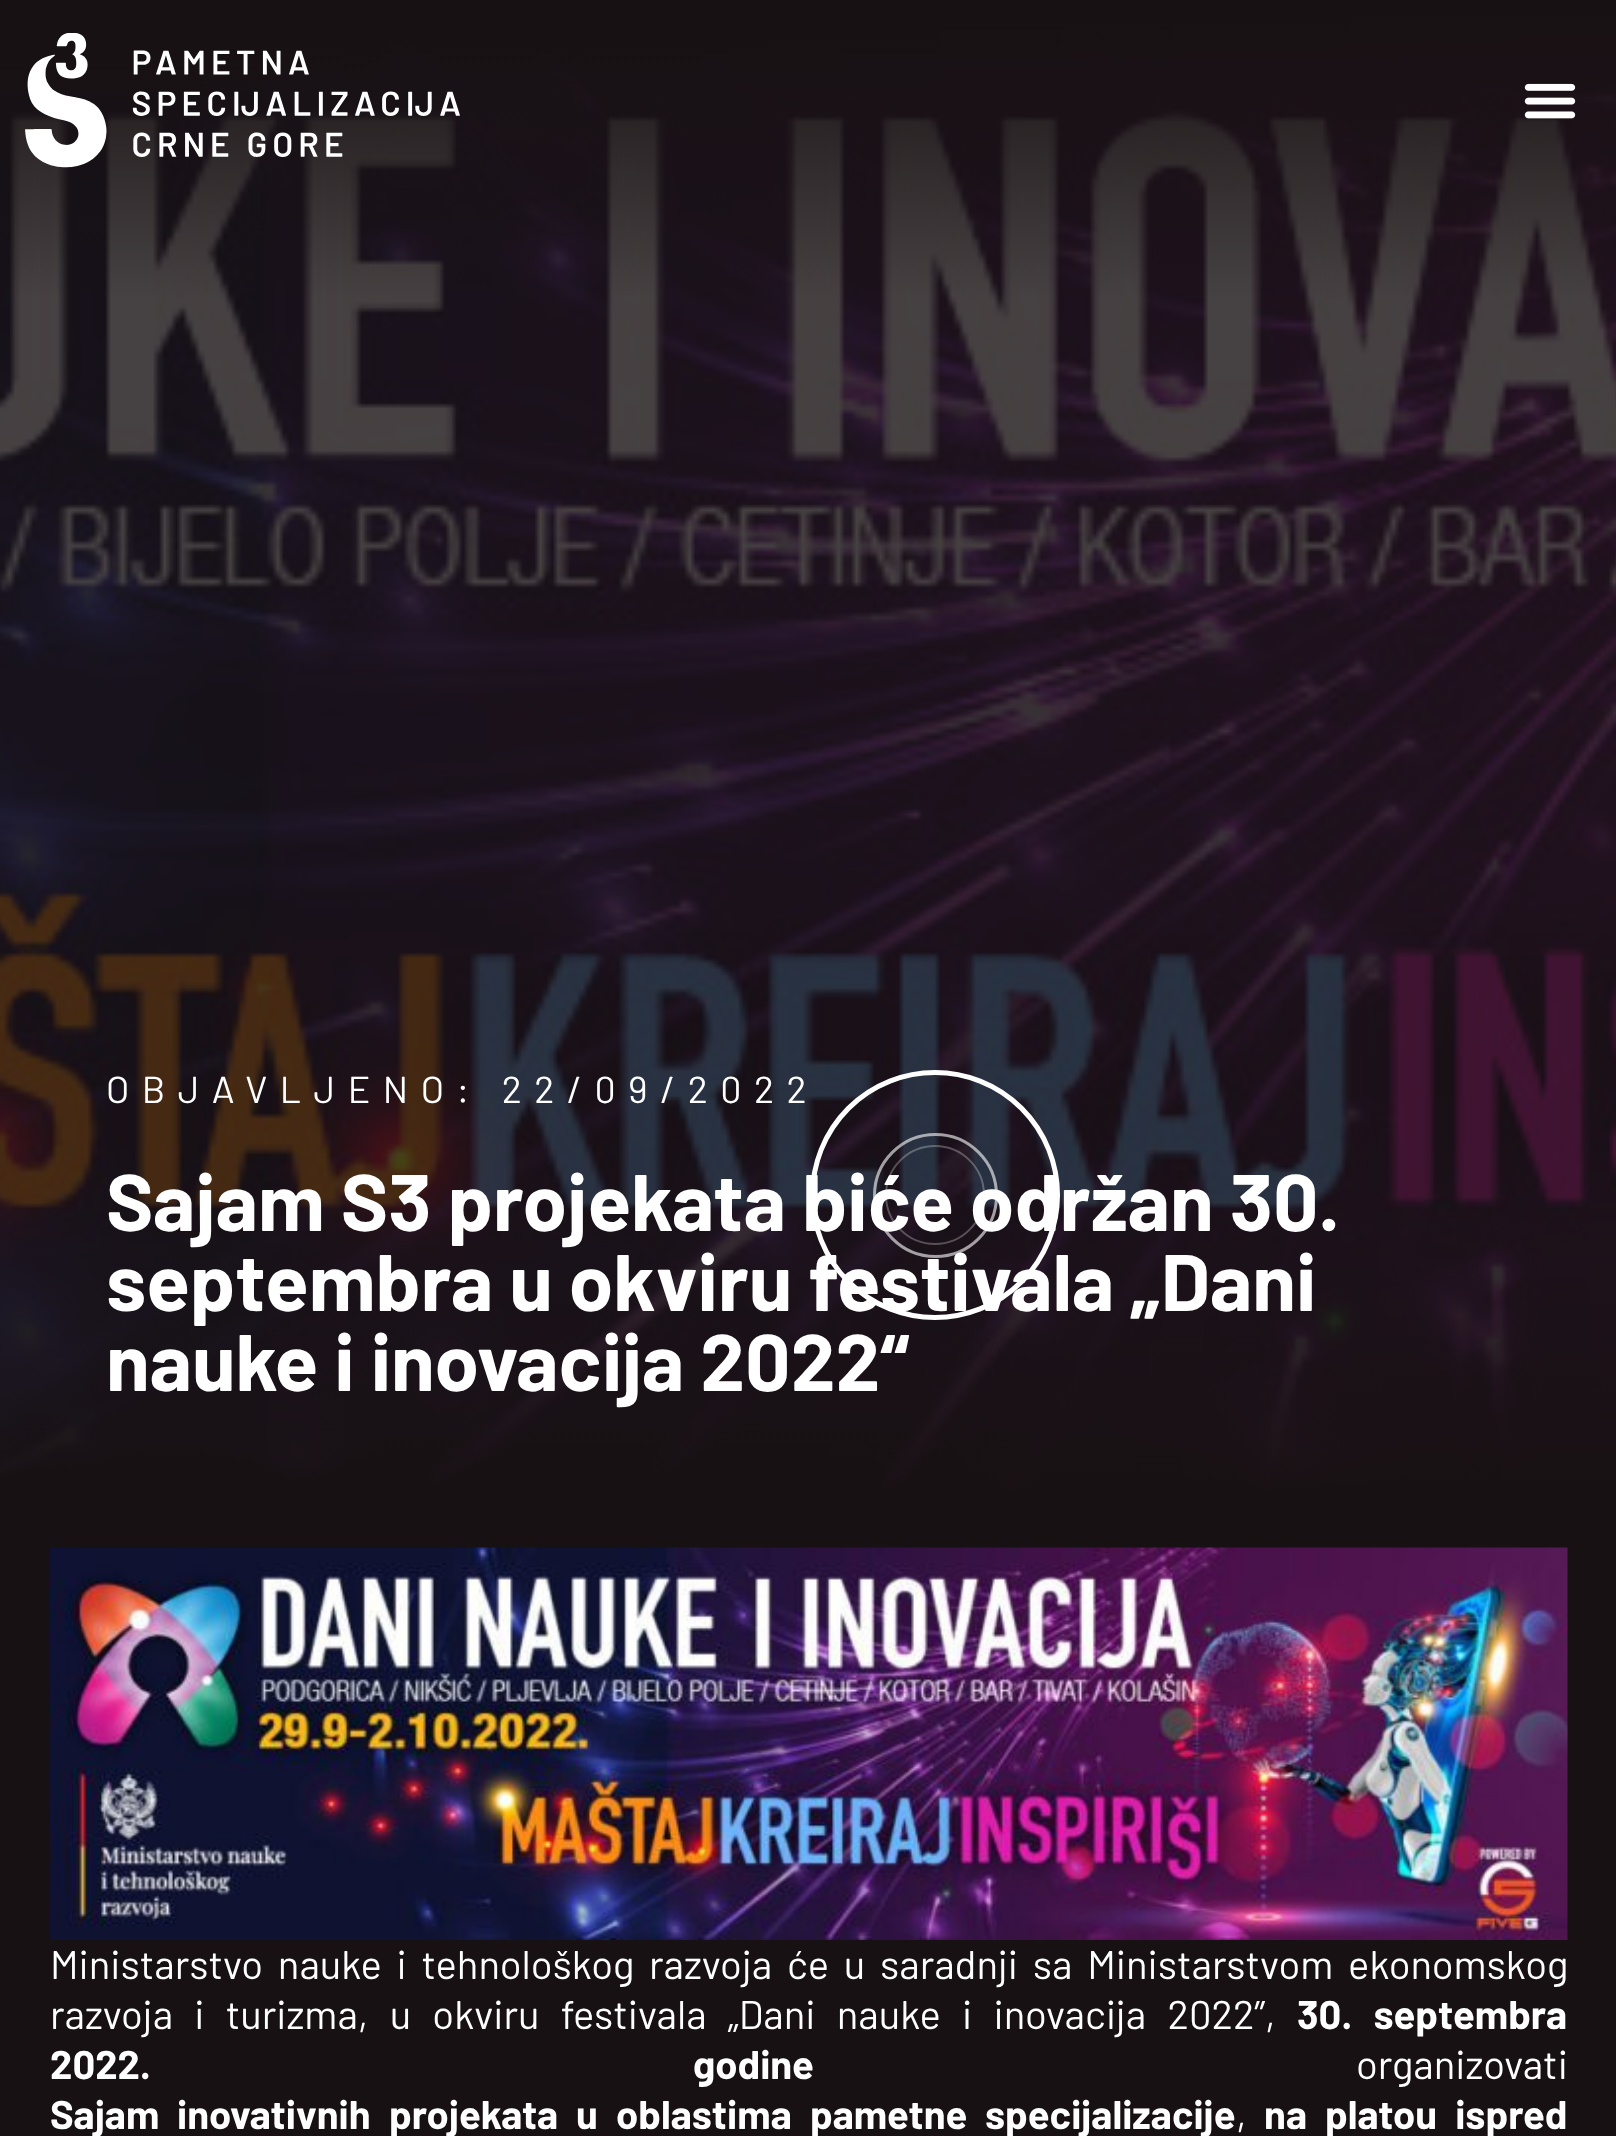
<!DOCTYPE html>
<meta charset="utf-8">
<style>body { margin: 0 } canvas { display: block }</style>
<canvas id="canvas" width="1616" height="2136"></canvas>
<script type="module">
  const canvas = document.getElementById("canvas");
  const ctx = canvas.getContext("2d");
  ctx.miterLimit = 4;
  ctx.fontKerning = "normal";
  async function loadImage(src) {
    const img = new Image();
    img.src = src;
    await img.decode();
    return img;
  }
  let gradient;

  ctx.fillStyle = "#181113";
  ctx.fillRect(0, 0, 1616, 2136);
  ctx.drawImage(await loadImage("img3.png"), 0, 2, 1616, 1494);
  gradient = ctx.createLinearGradient(809, 0, 809, 1498);
  gradient.addColorStop(0, "#181113");
  gradient.addColorStop(0.2, "rgba(24, 17, 19, 0)");
  gradient.addColorStop(0.8, "rgba(24, 17, 19, 0)");
  gradient.addColorStop(1, "#181113");
  ctx.fillStyle = gradient;
  ctx.fillRect(0, 2, 1616, 1494);
  ctx.drawImage(await loadImage("img1.png"), 25, 33, 435, 135);
  ctx.drawImage(await loadImage("img2.png"), 1524, 83, 52, 36);
  ctx.beginPath();
  ctx.arc(935, 1195, 122.5, 0, Math.PI * 2);
  ctx.strokeStyle = "#ffffff";
  ctx.lineWidth = 5;
  ctx.stroke();
  ctx.letterSpacing = "12.5px";
  ctx.font = "37.5px Barlow";
  ctx.fillStyle = "#ffffff";
  ctx.fillText("OBJAVLJENO: 22/09/2022", 106, 1103);
  ctx.letterSpacing = "0px";
  ctx.font = "bold 80px Barlow";
  ctx.fillText("Sajam S3 projekata biće održan 30.", 106, 1231);
  ctx.fillText("septembra u okviru festivala „Dani", 106, 1311);
  ctx.fillText("nauke i inovacija 2022“", 106, 1391);
  ctx.drawImage(await loadImage("img4.png"), 50, 1547, 1518, 393);
  ctx.wordSpacing = "6.75px";
  ctx.font = "40px Barlow";
  ctx.fillText("Ministarstvo nauke i tehnološkog razvoja će u saradnji sa Ministarstvom ekonomskog", 50, 1979);
  ctx.wordSpacing = "13.25px";
  ctx.fillText("razvoja i turizma, u okviru festivala „Dani nauke i inovacija 2022”,", 50, 2029);
  ctx.font = "bold 40px Barlow";
  ctx.fillText("30. septembra", 1297, 2029);
  ctx.wordSpacing = "0px";
  ctx.fillText("2022.", 50, 2079);
  ctx.fillText("godine", 693, 2079);
  ctx.font = "40px Barlow";
  ctx.fillText("organizovati", 1356, 2079);
  ctx.font = "bold 40px Barlow";
  ctx.fillText("Sajam", 50, 2129);
  ctx.fillText("inovativnih", 177, 2129);
  ctx.fillText("projekata", 389, 2129);
  ctx.fillText("u", 576, 2129);
  ctx.fillText("oblastima", 616, 2129);
  ctx.fillText("pametne", 810, 2129);
  ctx.fillText("specijalizacije", 985, 2129);
  ctx.font = "40px Barlow";
  ctx.fillText(",", 1236, 2129);
  ctx.wordSpacing = "10px";
  ctx.font = "bold 40px Barlow";
  ctx.fillText("na platou ispred", 1264, 2129);
  ctx.beginPath();
  ctx.arc(935.5, 1195.5, 61, 0, Math.PI * 2);
  ctx.strokeStyle = "rgba(255, 255, 255, 0.6)";
  ctx.lineWidth = 3;
  ctx.stroke();
  ctx.beginPath();
  ctx.arc(935, 1195, 49, 0, Math.PI * 2);
  ctx.strokeStyle = "rgba(255, 255, 255, 0.27)";
  ctx.lineWidth = 2;
  ctx.stroke();
</script>
